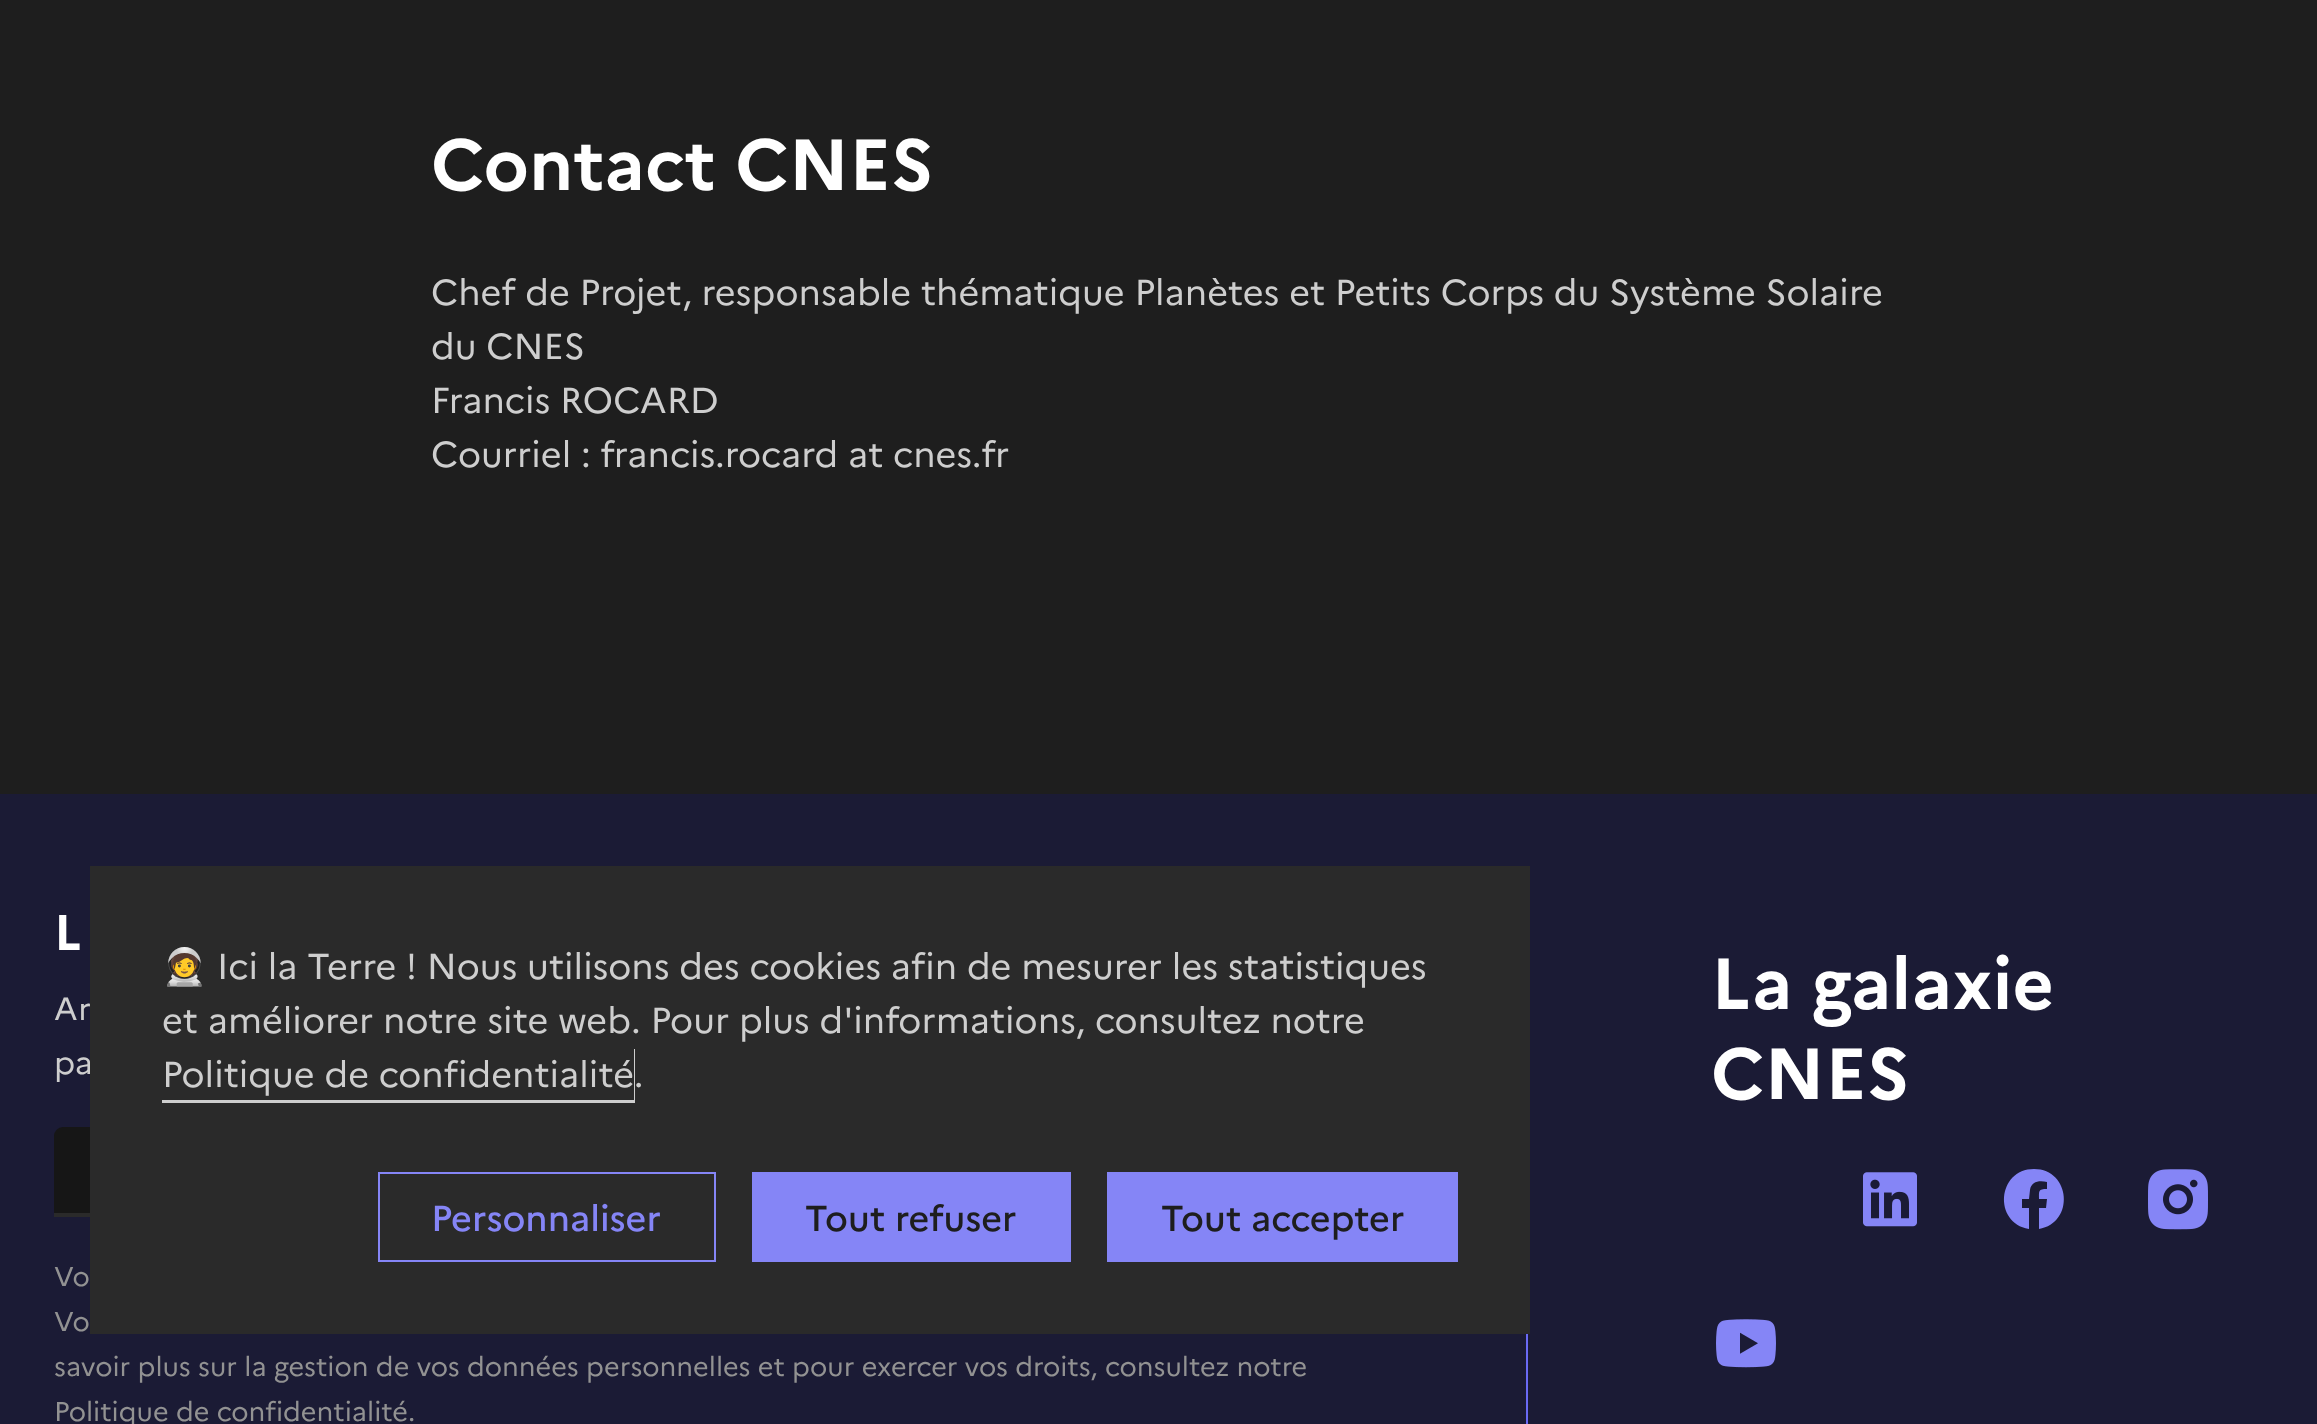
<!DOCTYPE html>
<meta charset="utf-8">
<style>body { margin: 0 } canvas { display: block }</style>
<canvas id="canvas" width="2317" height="1424"></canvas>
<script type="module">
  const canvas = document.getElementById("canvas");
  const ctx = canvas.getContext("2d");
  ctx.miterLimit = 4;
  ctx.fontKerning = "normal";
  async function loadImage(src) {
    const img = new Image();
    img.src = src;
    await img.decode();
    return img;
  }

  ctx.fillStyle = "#1e1e1e";
  ctx.fillRect(0, 0, 2317, 1424);
  ctx.font = "bold 72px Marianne";
  ctx.fillStyle = "#ffffff";
  ctx.fillText("Contact CNES", 431, 190);
  ctx.font = "36px Marianne";
  ctx.fillStyle = "#cecece";
  ctx.fillText("Chef de Projet, responsable thématique Planètes et Petits Corps du Système Solaire", 431, 305);
  ctx.fillText("du CNES", 431, 359);
  ctx.fillText("Francis ROCARD", 431, 413);
  ctx.fillText("Courriel : francis.rocard at cnes.fr", 431, 467);
  ctx.fillStyle = "#1b1b35";
  ctx.fillRect(0, 794, 2317, 630);
  ctx.font = "bold 50px Marianne";
  ctx.fillStyle = "#ffffff";
  ctx.fillText("L", 54, 950);
  ctx.font = "32px Marianne";
  ctx.fillStyle = "#cecece";
  ctx.fillText("Ar", 54, 1020);
  ctx.fillText("pa", 54, 1074);
  ctx.fillStyle = "#161616";
  ctx.beginPath();
  ctx.roundRect(54, 1127, 1040, 90, [9, 0, 0, 0]);
  ctx.fill();
  ctx.fillStyle = "#2a2a2a";
  ctx.fillRect(54, 1213, 36, 4);
  ctx.font = "27px Marianne";
  ctx.fillStyle = "#929292";
  ctx.fillText("Vo", 54, 1286);
  ctx.fillText("Vo", 54, 1331);
  ctx.fillText("savoir plus sur la gestion de vos données personnelles et pour exercer vos droits, consultez notre", 54, 1376);
  ctx.fillText("Politique de confidentialité.", 54, 1421);
  ctx.fillStyle = "#6a6af4";
  ctx.beginPath();
  ctx.moveTo(1526, 866);
  ctx.lineTo(1526, 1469);
  ctx.lineTo(1528, 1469);
  ctx.lineTo(1528, 866);
  ctx.lineTo(2261, 866);
  ctx.closePath();
  ctx.fill();
  ctx.font = "bold 72px Marianne";
  ctx.fillStyle = "#ffffff";
  ctx.fillText("La galaxie", 1711, 1009);
  ctx.fillText("CNES", 1711, 1099);
  ctx.drawImage(await loadImage("img1.png"), 1863, 1172, 54, 55);
  ctx.fillStyle = "#8585f6";
  ctx.beginPath();
  ctx.moveTo(2034, 1169);
  ctx.bezierCurveTo(1997, 1169, 1993, 1223, 2029, 1229);
  ctx.lineTo(2029, 1208);
  ctx.lineTo(2022, 1208);
  ctx.lineTo(2022, 1199);
  ctx.lineTo(2029, 1199);
  ctx.lineTo(2030, 1190);
  ctx.bezierCurveTo(2031, 1181, 2040, 1180, 2047, 1182);
  ctx.lineTo(2047, 1189);
  ctx.bezierCurveTo(2038, 1189, 2039, 1191, 2039, 1199);
  ctx.lineTo(2047, 1199);
  ctx.lineTo(2046, 1208);
  ctx.lineTo(2039, 1208);
  ctx.lineTo(2039, 1229);
  ctx.bezierCurveTo(2075, 1223, 2071, 1169, 2034, 1169);
  ctx.closePath();
  ctx.fill();
  ctx.drawImage(await loadImage("img2.png"), 2148, 1169, 60, 61);
  ctx.drawImage(await loadImage("img3.png"), 1716, 1319, 60, 49);
  ctx.fillStyle = "#2a2a2a";
  ctx.fillRect(90, 866, 1440, 468);
  ctx.font = "36px Noto Color Emoji";
  ctx.fillStyle = "#cecece";
  ctx.fillText("🧑‍🚀", 162, 979);
  ctx.font = "36px Marianne";
  ctx.fillText("Ici la Terre ! Nous utilisons des cookies afin de mesurer les statistiques", 217, 979);
  ctx.fillText("et améliorer notre site web. Pour plus d'informations, consultez notre", 162, 1033);
  ctx.beginPath();
  ctx.moveTo(162, 1100);
  ctx.lineTo(162, 1103);
  ctx.lineTo(635, 1103);
  ctx.lineTo(635, 1049);
  ctx.lineTo(634, 1049);
  ctx.lineTo(634, 1100);
  ctx.closePath();
  ctx.fill();
  ctx.fillText("Politique de confidentialité.", 162, 1087);
  ctx.strokeStyle = "#8585f6";
  ctx.lineWidth = 2;
  ctx.strokeRect(379, 1173, 336, 88);
  ctx.font = "500 36px Marianne";
  ctx.fillStyle = "#8585f6";
  ctx.fillText("Personnaliser", 431, 1231);
  ctx.fillRect(752, 1172, 319, 90);
  ctx.fillStyle = "#1e1e1e";
  ctx.fillText("Tout refuser", 805, 1231);
  ctx.fillStyle = "#8585f6";
  ctx.fillRect(1107, 1172, 351, 90);
  ctx.fillStyle = "#1e1e1e";
  ctx.fillText("Tout accepter", 1161, 1231);
</script>
